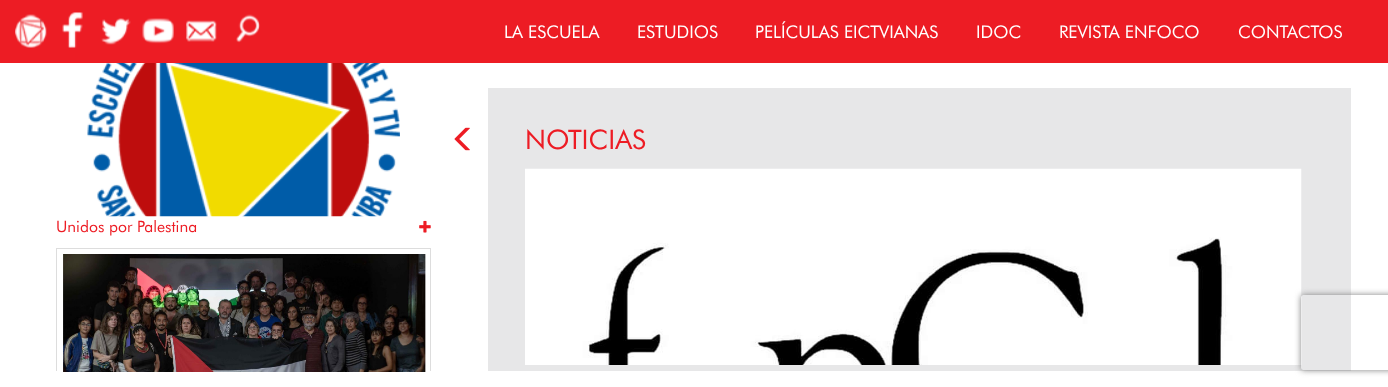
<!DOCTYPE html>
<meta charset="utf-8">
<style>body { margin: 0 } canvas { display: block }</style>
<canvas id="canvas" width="1388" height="387"></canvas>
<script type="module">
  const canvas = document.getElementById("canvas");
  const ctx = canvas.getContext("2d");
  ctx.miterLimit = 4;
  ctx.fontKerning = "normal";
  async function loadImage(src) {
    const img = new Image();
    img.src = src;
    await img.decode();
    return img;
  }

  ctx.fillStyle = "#ffffff";
  ctx.fillRect(0, 0, 1388, 387);
  ctx.fillStyle = "#ed1c24";
  ctx.fillRect(0, 0, 1388, 63);
  ctx.drawImage(await loadImage("img1.png"), 15, 14, 32, 34);
  ctx.drawImage(await loadImage("img2.png"), 62, 12, 21, 36);
  ctx.drawImage(await loadImage("img3.png"), 101, 18, 30, 27);
  ctx.drawImage(await loadImage("img4.png"), 142, 18, 32, 26);
  ctx.drawImage(await loadImage("img5.png"), 186, 20, 31, 22);
  ctx.drawImage(await loadImage("img6.png"), 236, 14, 24, 29);
  ctx.font = "17.5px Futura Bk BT";
  ctx.fillStyle = "#ffffff";
  ctx.fillText("LA ESCUELA", 504, 38);
  ctx.fillText("ESTUDIOS", 637, 38);
  ctx.fillText("PELÍCULAS EICTVIANAS", 755, 38);
  ctx.fillText("IDOC", 976, 38);
  ctx.fillText("REVISTA ENFOCO", 1059, 38);
  ctx.fillText("CONTACTOS", 1238, 38);
  ctx.drawImage(await loadImage("img7.png"), 454, 127, 16, 24);
  ctx.fillStyle = "#e7e7e8";
  ctx.fillRect(488, 88, 863, 283);
  ctx.font = "27px Futura Bk BT";
  ctx.fillStyle = "#ed1c24";
  ctx.fillText("NOTICIAS", 525, 149);
  ctx.drawImage(await loadImage("img8.png"), 525, 168, 777, 197);
  ctx.drawImage(await loadImage("img9.png"), 87, 63, 313, 154);
  ctx.font = "15.75px Futura Bk BT";
  ctx.fillText("Unidos por Palestina", 56, 232);
  ctx.drawImage(await loadImage("img10.png"), 419, 220, 12, 13);
  ctx.save();
  ctx.beginPath();
  ctx.rect(38, 216, 412, 155);
  ctx.clip();
  ctx.strokeStyle = "#dddddd";
  ctx.strokeRect(56.5, 248.5, 374, 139);
  ctx.restore();
  ctx.drawImage(await loadImage("img11.png"), 63, 254, 363, 118);
  ctx.save();
  ctx.beginPath();
  ctx.moveTo(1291, 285);
  ctx.lineTo(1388, 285);
  ctx.lineTo(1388, 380);
  ctx.lineTo(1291, 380);
  ctx.closePath();
  ctx.moveTo(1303.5, 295);
  ctx.lineTo(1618.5, 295);
  ctx.bezierCurveTo(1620, 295, 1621, 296, 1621, 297.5);
  ctx.lineTo(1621, 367.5);
  ctx.bezierCurveTo(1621, 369, 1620, 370, 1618.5, 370);
  ctx.lineTo(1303.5, 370);
  ctx.bezierCurveTo(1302, 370, 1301, 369, 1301, 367.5);
  ctx.lineTo(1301, 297.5);
  ctx.bezierCurveTo(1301, 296, 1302, 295, 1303.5, 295);
  ctx.closePath();
  ctx.clip("evenodd");
  ctx.fillStyle = "#808080";
  ctx.filter = "blur(3px)";
  ctx.beginPath();
  ctx.roundRect(1301, 295, 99, 75, 2.5);
  ctx.fill();
  ctx.filter = "none";
  ctx.restore();
</script>
